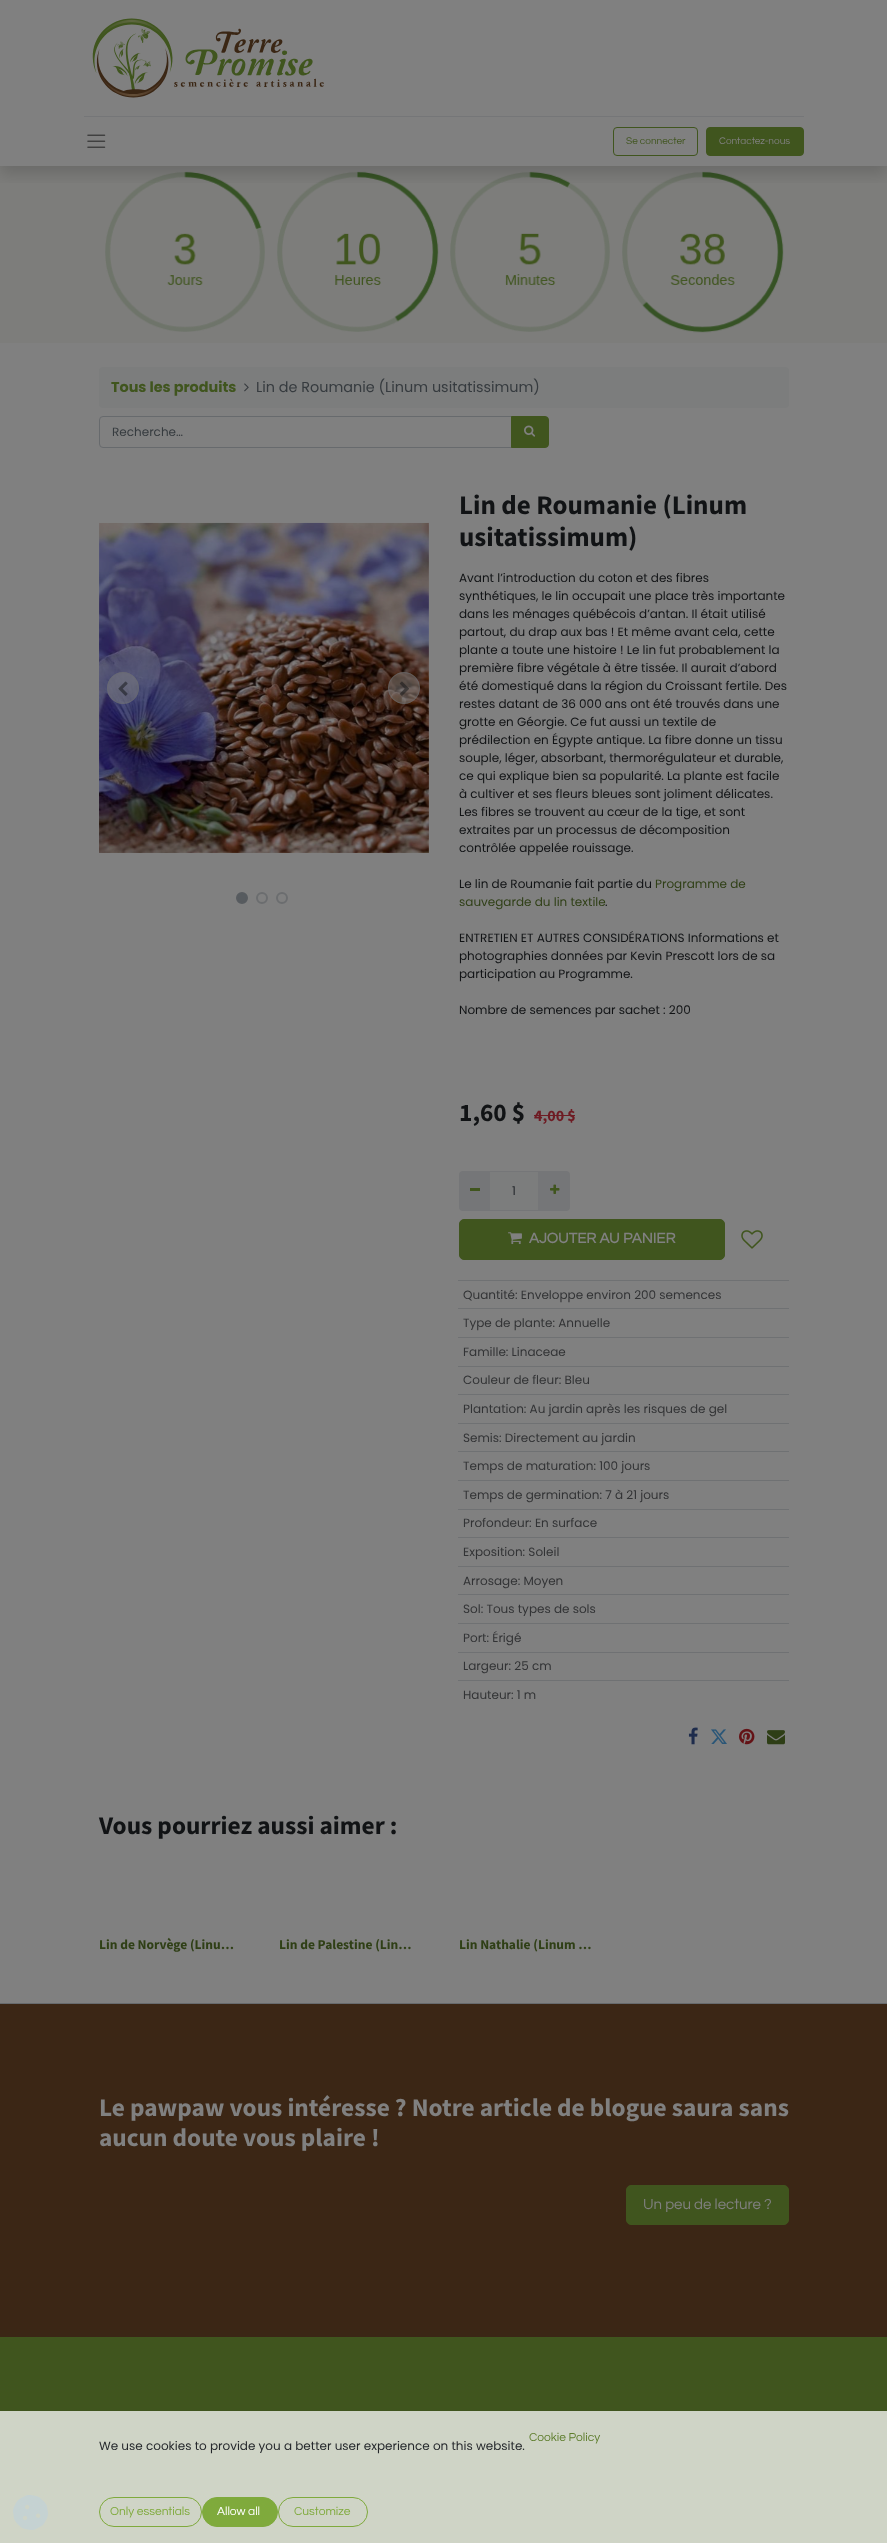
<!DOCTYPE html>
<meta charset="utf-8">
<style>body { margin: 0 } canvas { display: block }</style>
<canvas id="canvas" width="887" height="2543"></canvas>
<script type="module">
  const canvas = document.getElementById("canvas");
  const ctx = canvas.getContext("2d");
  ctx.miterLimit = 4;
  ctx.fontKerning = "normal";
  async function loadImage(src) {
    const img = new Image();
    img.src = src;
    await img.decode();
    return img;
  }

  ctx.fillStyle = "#808080";
  ctx.fillRect(0, 0, 887, 2543);
  ctx.fillStyle = "#7d7d7b";
  ctx.fillRect(0, 166, 887, 177);
  ctx.drawImage(await loadImage("img3.png"), 105, 171, 160, 161);
  ctx.drawImage(await loadImage("img4.png"), 277, 171, 162, 161);
  ctx.drawImage(await loadImage("img5.png"), 450, 171, 160, 161);
  ctx.drawImage(await loadImage("img6.png"), 622, 171, 162, 162);
  ctx.save();
  ctx.beginPath();
  ctx.rect(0, 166, 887, 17);
  ctx.clip();
  ctx.fillStyle = "rgba(0, 0, 0, 0.15)";
  ctx.filter = "blur(8px)";
  ctx.beginPath();
  ctx.rect(0, 8, 887, 166);
  ctx.fill();
  ctx.filter = "none";
  ctx.restore();
  ctx.drawImage(await loadImage("img1.png"), 92, 18, 232, 80);
  ctx.fillStyle = "#757678";
  ctx.fillRect(84, 116, 720, 1);
  ctx.drawImage(await loadImage("img2.png"), 87, 134, 19, 14);
  ctx.beginPath();
  ctx.roundRect(613.5, 127.5, 84, 28, 3.5);
  ctx.strokeStyle = "#40551e";
  ctx.stroke();
  ctx.font = "10px Questrial";
  ctx.fillStyle = "#40551e";
  ctx.fillText("Se connecter", 626, 144);
  ctx.beginPath();
  ctx.roundRect(706.5, 127.5, 97, 28, 3.5);
  ctx.fill();
  ctx.stroke();
  ctx.fillStyle = "#808080";
  ctx.fillText("Contactez-nous", 719, 144);
  ctx.fillStyle = "#7c7d7d";
  ctx.beginPath();
  ctx.roundRect(99, 367, 690, 41, 4);
  ctx.fill();
  ctx.font = "bold 14.4px Poppins";
  ctx.fillStyle = "#40551e";
  ctx.fillText("Tous les produits", 111, 392);
  ctx.drawImage(await loadImage("img7.png"), 244, 383, 5, 9);
  ctx.font = "14.4px Poppins";
  ctx.fillStyle = "#363b3f";
  ctx.fillText("Lin de Roumanie (Linum usitatissimum)", 256, 392);
  ctx.beginPath();
  ctx.roundRect(99.5, 416.5, 412, 31, [3.5, 0, 0, 3.5]);
  ctx.strokeStyle = "#676a6d";
  ctx.stroke();
  ctx.font = "12px Poppins";
  ctx.fillText("Recherche…", 112, 436);
  ctx.fillStyle = "#40551e";
  ctx.beginPath();
  ctx.roundRect(511.5, 416.5, 37, 31, [0, 3.5, 3.5, 0]);
  ctx.fill();
  ctx.strokeStyle = "#40551e";
  ctx.stroke();
  ctx.drawImage(await loadImage("img8.png"), 524, 425, 12, 12);
  ctx.drawImage(await loadImage("img9.png"), 99, 522, 330, 331);
  ctx.fillStyle = "rgba(128, 128, 128, 0.5)";
  ctx.beginPath();
  ctx.arc(123, 688, 16, 0, Math.PI * 2);
  ctx.fill();
  ctx.beginPath();
  ctx.arc(123, 688, 15.5, 0, Math.PI * 2);
  ctx.strokeStyle = "rgba(103, 106, 109, 0.5)";
  ctx.stroke();
  ctx.drawImage(await loadImage("img10.png"), 118, 681, 10, 15);
  ctx.beginPath();
  ctx.arc(404, 688, 16, 0, Math.PI * 2);
  ctx.fill();
  ctx.beginPath();
  ctx.arc(404, 688, 15.5, 0, Math.PI * 2);
  ctx.stroke();
  ctx.drawImage(await loadImage("img11.png"), 399, 681, 10, 15);
  ctx.fillStyle = "#575b5f";
  ctx.beginPath();
  ctx.arc(242, 898, 5, 0, Math.PI * 2);
  ctx.fill();
  ctx.strokeStyle = "#575b5f";
  ctx.lineWidth = 2;
  ctx.stroke();
  ctx.beginPath();
  ctx.arc(262, 898, 5, 0, Math.PI * 2);
  ctx.strokeStyle = "#6b6d6f";
  ctx.stroke();
  ctx.beginPath();
  ctx.arc(282, 898, 5, 0, Math.PI * 2);
  ctx.stroke();
  ctx.font = "bold 27px Source Sans Pro";
  ctx.fillStyle = "#111315";
  ctx.fillText("Lin de Roumanie (Linum", 459, 514);
  ctx.fillText("usitatissimum)", 459, 546);
  ctx.font = "12px Poppins";
  ctx.fillText("Avant l’introduction du coton et des fibres", 459, 582);
  ctx.fillText("synthétiques, le lin occupait une place très importante", 459, 600);
  ctx.fillText("dans les ménages québécois d’antan. Il était utilisé", 459, 618);
  ctx.fillText("partout, du drap aux bas ! Et même avant cela, cette", 459, 636);
  ctx.fillText("plante a toute une histoire ! Le lin fut probablement la", 459, 654);
  ctx.fillText("première fibre végétale à être tissée. Il aurait d’abord", 459, 672);
  ctx.fillText("été domestiqué dans la région du Croissant fertile. Des", 459, 690);
  ctx.fillText("restes datant de 36 000 ans ont été trouvés dans une", 459, 708);
  ctx.fillText("grotte en Géorgie. Ce fut aussi un textile de", 459, 726);
  ctx.fillText("prédilection en Égypte antique. La fibre donne un tissu", 459, 744);
  ctx.fillText("souple, léger, absorbant, thermorégulateur et durable,", 459, 762);
  ctx.fillText("ce qui explique bien sa popularité. La plante est facile", 459, 780);
  ctx.fillText("à cultiver et ses fleurs bleues sont joliment délicates.", 459, 798);
  ctx.fillText("Les fibres se trouvent au cœur de la tige, et sont", 459, 816);
  ctx.fillText("extraites par un processus de décomposition", 459, 834);
  ctx.fillText("contrôlée appelée rouissage.", 459, 852);
  ctx.fillText("Le lin de Roumanie fait partie du", 459, 888);
  ctx.fillStyle = "#2f3f16";
  ctx.fillText("Programme de", 655, 888);
  ctx.fillText("sauvegarde du lin textile", 459, 906);
  ctx.fillStyle = "#111315";
  ctx.fillText(".", 605, 906);
  ctx.fillText("ENTRETIEN ET AUTRES CONSIDÉRATIONS Informations et", 459, 942);
  ctx.fillText("photographies données par Kevin Prescott lors de sa", 459, 960);
  ctx.fillText("participation au Programme.", 459, 978);
  ctx.fillText("Nombre de semences par sachet : 200", 459, 1014);
  ctx.font = "bold 25.35px Source Sans Pro";
  ctx.fillText("1,60 $", 459, 1121);
  ctx.font = "bold 16px Source Sans Pro";
  ctx.fillStyle = "#6e1b23";
  ctx.fillText("4,00 $", 534, 1121);
  ctx.fillRect(534, 1115, 41, 1);
  ctx.fillStyle = "#7c7d7d";
  ctx.beginPath();
  ctx.rect(489.5, 1171.5, 49, 39);
  ctx.fill();
  ctx.strokeStyle = "#757678";
  ctx.lineWidth = 1;
  ctx.stroke();
  ctx.fillStyle = "#757678";
  ctx.beginPath();
  ctx.roundRect(459, 1171, 31, 40, [4, 0, 0, 4]);
  ctx.fill();
  ctx.fillStyle = "#40551e";
  ctx.fillRect(470, 1188, 10, 3);
  ctx.font = "12px Poppins";
  ctx.fillStyle = "#25282c";
  ctx.fillText("1", 512, 1195);
  ctx.fillStyle = "#757678";
  ctx.beginPath();
  ctx.roundRect(538, 1171, 32, 40, [0, 4, 4, 0]);
  ctx.fill();
  ctx.drawImage(await loadImage("img12.png"), 550, 1184, 10, 10);
  ctx.fillStyle = "#40551e";
  ctx.beginPath();
  ctx.roundRect(459.5, 1219.5, 265, 40, 4.5);
  ctx.fill();
  ctx.strokeStyle = "#40551e";
  ctx.stroke();
  ctx.drawImage(await loadImage("img13.png"), 508, 1232, 14, 13);
  ctx.font = "bold 15px Questrial";
  ctx.fillStyle = "#808080";
  ctx.fillText("AJOUTER AU PANIER", 529, 1243);
  ctx.drawImage(await loadImage("img14.png"), 741, 1230, 22, 19);
  ctx.fillStyle = "#6f7173";
  ctx.fillRect(458, 1280, 331, 1);
  ctx.font = "12px Poppins";
  ctx.fillStyle = "#323335";
  ctx.fillText("Quantité: Enveloppe environ 200 semences", 463, 1299);
  ctx.fillStyle = "#6f7173";
  ctx.fillRect(458, 1308, 331, 1);
  ctx.fillStyle = "#323335";
  ctx.fillText("Type de plante: Annuelle", 463, 1327);
  ctx.fillStyle = "#6f7173";
  ctx.fillRect(458, 1337, 331, 1);
  ctx.fillStyle = "#323335";
  ctx.fillText("Famille: Linaceae", 463, 1356);
  ctx.fillStyle = "#6f7173";
  ctx.fillRect(458, 1366, 331, 1);
  ctx.fillStyle = "#323335";
  ctx.fillText("Couleur de fleur: Bleu", 463, 1384);
  ctx.fillStyle = "#6f7173";
  ctx.fillRect(458, 1394, 331, 1);
  ctx.fillStyle = "#323335";
  ctx.fillText("Plantation: Au jardin après les risques de gel", 463, 1413);
  ctx.fillStyle = "#6f7173";
  ctx.fillRect(458, 1423, 331, 1);
  ctx.fillStyle = "#323335";
  ctx.fillText("Semis: Directement au jardin", 463, 1442);
  ctx.fillStyle = "#6f7173";
  ctx.fillRect(458, 1451, 331, 1);
  ctx.fillStyle = "#323335";
  ctx.fillText("Temps de maturation: 100 jours", 463, 1470);
  ctx.fillStyle = "#6f7173";
  ctx.fillRect(458, 1480, 331, 1);
  ctx.fillStyle = "#323335";
  ctx.fillText("Temps de germination: 7 à 21 jours", 463, 1499);
  ctx.fillStyle = "#6f7173";
  ctx.fillRect(458, 1509, 331, 1);
  ctx.fillStyle = "#323335";
  ctx.fillText("Profondeur: En surface", 463, 1527);
  ctx.fillStyle = "#6f7173";
  ctx.fillRect(458, 1537, 331, 1);
  ctx.fillStyle = "#323335";
  ctx.fillText("Exposition: Soleil", 463, 1556);
  ctx.fillStyle = "#6f7173";
  ctx.fillRect(458, 1566, 331, 1);
  ctx.fillStyle = "#323335";
  ctx.fillText("Arrosage: Moyen", 463, 1585);
  ctx.fillStyle = "#6f7173";
  ctx.fillRect(458, 1594, 331, 1);
  ctx.fillStyle = "#323335";
  ctx.fillText("Sol: Tous types de sols", 463, 1613);
  ctx.fillStyle = "#6f7173";
  ctx.fillRect(458, 1623, 331, 1);
  ctx.fillStyle = "#323335";
  ctx.fillText("Port: Érigé", 463, 1642);
  ctx.fillStyle = "#6f7173";
  ctx.fillRect(458, 1652, 331, 1);
  ctx.fillStyle = "#323335";
  ctx.fillText("Largeur: 25 cm", 463, 1670);
  ctx.fillStyle = "#6f7173";
  ctx.fillRect(458, 1680, 331, 1);
  ctx.fillStyle = "#323335";
  ctx.fillText("Hauteur: 1 m", 463, 1699);
  ctx.drawImage(await loadImage("img15.png"), 688, 1727, 10, 18);
  ctx.drawImage(await loadImage("img16.png"), 711, 1729, 16, 15);
  ctx.drawImage(await loadImage("img17.png"), 739, 1728, 16, 17);
  ctx.drawImage(await loadImage("img18.png"), 767, 1730, 18, 15);
  ctx.font = "bold 25.35px Source Sans Pro";
  ctx.fillStyle = "#111315";
  ctx.fillText("Vous pourriez aussi aimer :", 99, 1834);
  ctx.font = "bold 13.5px Source Sans Pro";
  ctx.fillStyle = "#2f3f16";
  ctx.fillText("Lin de Norvège (Linu…", 99, 1949);
  ctx.fillText("Lin de Palestine (Lin…", 279, 1949);
  ctx.fillText("Lin Nathalie (Linum …", 459, 1949);
  ctx.fillStyle = "#3b2615";
  ctx.fillRect(0, 2004, 887, 333);
  ctx.fillStyle = "#676a6d";
  ctx.fillRect(0, 2003, 887, 1);
  ctx.font = "bold 25.35px Source Sans Pro";
  ctx.fillStyle = "#808080";
  ctx.fillText("Le pawpaw vous intéresse ? Notre article de blogue saura sans", 99, 2116);
  ctx.fillText("aucun doute vous plaire !", 99, 2146);
  ctx.fillStyle = "#40551e";
  ctx.beginPath();
  ctx.roundRect(626.5, 2185.5, 162, 39, 4.5);
  ctx.fill();
  ctx.stroke();
  ctx.font = "15px Questrial";
  ctx.fillStyle = "#808080";
  ctx.fillText("Un peu de lecture ?", 643, 2209);
  ctx.fillStyle = "#40551e";
  ctx.fillRect(0, 2337, 887, 206);
  ctx.drawImage(await loadImage("img19.png"), 13, 2495, 35, 35);
  ctx.fillStyle = "rgba(255, 255, 255, 0.75)";
  ctx.fillRect(0, 2411, 887, 132);
  ctx.font = "12px Questrial";
  ctx.fillStyle = "#5d7d2c";
  ctx.fillText("Cookie Policy", 529, 2441);
  ctx.font = "12px Poppins";
  ctx.fillStyle = "#25282c";
  ctx.fillText("We use cookies to provide you a better user experience on this website.", 99, 2450);
  ctx.beginPath();
  ctx.roundRect(99.5, 2497.5, 102, 29, 14.5);
  ctx.strokeStyle = "#7faa3c";
  ctx.stroke();
  ctx.font = "12px Questrial";
  ctx.fillStyle = "#7faa3c";
  ctx.fillText("Only essentials", 110, 2515);
  ctx.beginPath();
  ctx.roundRect(202.5, 2497.5, 75, 29, 14.5);
  ctx.fill();
  ctx.stroke();
  ctx.fillStyle = "#ffffff";
  ctx.fillText("Allow all", 217, 2515);
  ctx.beginPath();
  ctx.roundRect(278.5, 2497.5, 89, 29, 14.5);
  ctx.stroke();
  ctx.fillStyle = "#7faa3c";
  ctx.fillText("Customize", 294, 2515);
</script>
